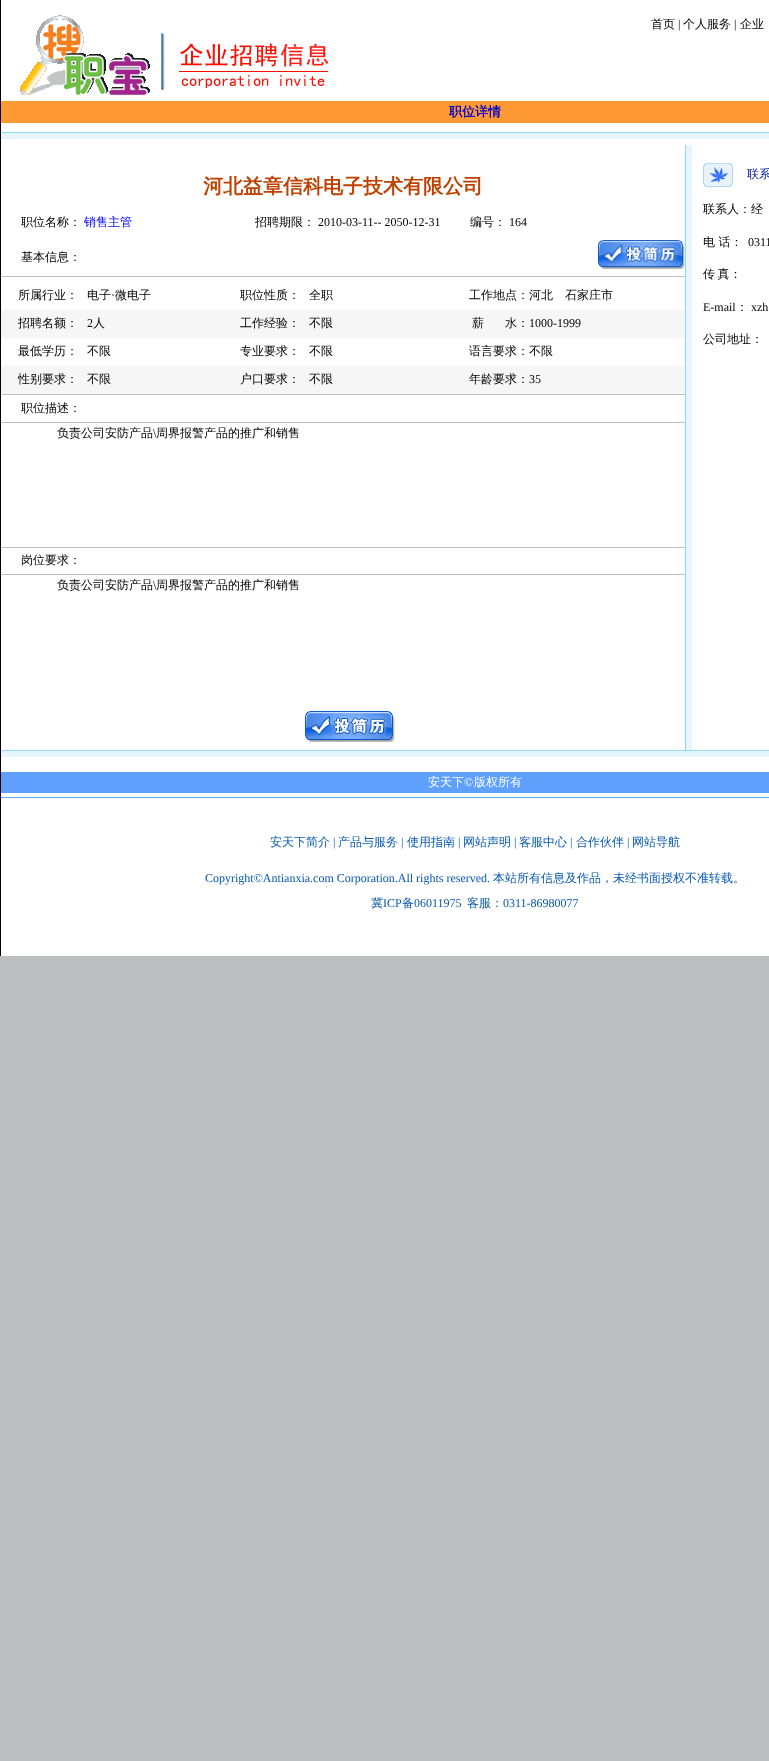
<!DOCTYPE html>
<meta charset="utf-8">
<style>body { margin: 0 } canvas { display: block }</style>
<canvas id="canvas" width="769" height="1761"></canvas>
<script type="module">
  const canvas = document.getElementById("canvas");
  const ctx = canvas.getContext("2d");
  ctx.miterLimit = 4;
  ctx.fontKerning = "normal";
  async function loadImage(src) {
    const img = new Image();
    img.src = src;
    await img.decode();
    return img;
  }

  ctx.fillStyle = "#bcbec0";
  ctx.fillRect(0, 0, 769, 1761);
  ctx.fillStyle = "#000000";
  ctx.fillRect(0, 0, 1, 956);
  ctx.fillStyle = "#ffffff";
  ctx.fillRect(1, 0, 768, 956);
  ctx.drawImage(await loadImage("img1.png"), 20, 15, 130, 81);
  ctx.font = "500 12px WenQuanYi Zen Hei";
  ctx.fillStyle = "#000000";
  ctx.fillText("首页", 651, 28);
  ctx.font = "12px Liberation Serif";
  ctx.fillText("|", 678, 28);
  ctx.font = "500 12px WenQuanYi Zen Hei";
  ctx.fillText("个人服务", 683, 28);
  ctx.font = "12px Liberation Serif";
  ctx.fillText("|", 734, 28);
  ctx.font = "500 12px WenQuanYi Zen Hei";
  ctx.fillText("企业", 740, 28);
  ctx.drawImage(await loadImage("img2.png"), 161, 33, 4, 58);
  ctx.drawImage(await loadImage("img3.png"), 179, 43, 150, 45);
  ctx.fillStyle = "#ff9933";
  ctx.fillRect(1, 101, 768, 22);
  ctx.font = "bold 13px WenQuanYi Zen Hei";
  ctx.fillStyle = "#0000cc";
  ctx.fillText("职位详情", 449, 116);
  ctx.fillStyle = "#8dd8f8";
  ctx.fillRect(1, 132, 768, 1);
  ctx.fillStyle = "#e7f6fd";
  ctx.fillRect(1, 133, 768, 6);
  ctx.font = "bold 20px WenQuanYi Zen Hei";
  ctx.fillStyle = "#c04000";
  ctx.fillText("河北益章信科电子技术有限公司", 203, 193);
  ctx.font = "500 12px WenQuanYi Zen Hei";
  ctx.fillStyle = "#000000";
  ctx.fillText("职位名称：", 21, 226);
  ctx.fillStyle = "#0000ff";
  ctx.fillText("销售主管", 84, 226);
  ctx.fillStyle = "#000000";
  ctx.fillText("招聘期限：", 255, 226);
  ctx.font = "12px Liberation Serif";
  ctx.fillText("2010-03-11-- 2050-12-31", 318, 226);
  ctx.font = "500 12px WenQuanYi Zen Hei";
  ctx.fillText("编号：", 470, 226);
  ctx.font = "12px Liberation Serif";
  ctx.fillText("164", 509, 226);
  ctx.font = "500 12px WenQuanYi Zen Hei";
  ctx.fillText("基本信息：", 21, 261);
  ctx.drawImage(await loadImage("img4.png"), 598, 240, 87, 29);
  ctx.fillStyle = "#bcbec0";
  ctx.fillRect(1, 276, 684, 1);
  ctx.fillStyle = "#000000";
  ctx.fillText("所属行业：", 18, 299);
  ctx.fillText("电子", 87, 299);
  ctx.font = "12px Liberation Serif";
  ctx.fillText("·", 111, 299);
  ctx.font = "500 12px WenQuanYi Zen Hei";
  ctx.fillText("微电子", 115, 299);
  ctx.fillText("职位性质：", 240, 299);
  ctx.fillText("全职", 309, 299);
  ctx.fillText("工作地点：河北　石家庄市", 469, 299);
  ctx.fillStyle = "#f6f6f6";
  ctx.fillRect(1, 310, 684, 28);
  ctx.fillStyle = "#000000";
  ctx.fillText("招聘名额：", 18, 327);
  ctx.font = "12px Liberation Serif";
  ctx.fillText("2", 87, 327);
  ctx.font = "500 12px WenQuanYi Zen Hei";
  ctx.fillText("人", 93, 327);
  ctx.fillText("工作经验：", 240, 327);
  ctx.fillText("不限", 309, 327);
  ctx.fillText("薪", 472, 327);
  ctx.fillText("水：", 505, 327);
  ctx.font = "12px Liberation Serif";
  ctx.fillText("1000-1999", 529, 327);
  ctx.font = "500 12px WenQuanYi Zen Hei";
  ctx.fillText("最低学历：", 18, 355);
  ctx.fillText("不限", 87, 355);
  ctx.fillText("专业要求：", 240, 355);
  ctx.fillText("不限", 309, 355);
  ctx.fillText("语言要求：不限", 469, 355);
  ctx.fillStyle = "#f6f6f6";
  ctx.fillRect(1, 366, 684, 28);
  ctx.fillStyle = "#000000";
  ctx.fillText("性别要求：", 18, 383);
  ctx.fillText("不限", 87, 383);
  ctx.fillText("户口要求：", 240, 383);
  ctx.fillText("不限", 309, 383);
  ctx.fillText("年龄要求：", 469, 383);
  ctx.font = "12px Liberation Serif";
  ctx.fillText("35", 529, 383);
  ctx.fillStyle = "#bcbec0";
  ctx.fillRect(1, 394, 684, 1);
  ctx.font = "500 12px WenQuanYi Zen Hei";
  ctx.fillStyle = "#000000";
  ctx.fillText("职位描述：", 21, 412);
  ctx.fillStyle = "#bcbec0";
  ctx.fillRect(1, 422, 684, 1);
  ctx.fillStyle = "#000000";
  ctx.fillText("负责公司安防产品", 57, 437);
  ctx.font = "12px Liberation Serif";
  ctx.fillText("\\", 153, 437);
  ctx.font = "500 12px WenQuanYi Zen Hei";
  ctx.fillText("周界报警产品的推广和销售", 156, 437);
  ctx.fillStyle = "#bcbec0";
  ctx.fillRect(1, 547, 684, 1);
  ctx.fillStyle = "#000000";
  ctx.fillText("岗位要求：", 21, 564);
  ctx.fillStyle = "#bcbec0";
  ctx.fillRect(1, 574, 684, 1);
  ctx.fillStyle = "#000000";
  ctx.fillText("负责公司安防产品", 57, 589);
  ctx.font = "12px Liberation Serif";
  ctx.fillText("\\", 153, 589);
  ctx.font = "500 12px WenQuanYi Zen Hei";
  ctx.fillText("周界报警产品的推广和销售", 156, 589);
  ctx.drawImage(await loadImage("img5.png"), 305, 711, 90, 31);
  ctx.fillStyle = "#8dd8f8";
  ctx.fillRect(685, 145, 1, 605);
  ctx.fillStyle = "#e7f6fd";
  ctx.fillRect(686, 145, 6, 605);
  ctx.drawImage(await loadImage("img6.png"), 703, 163, 30, 24);
  ctx.fillStyle = "#021b9a";
  ctx.fillText("联系", 747, 178);
  ctx.fillStyle = "#000000";
  ctx.fillText("联系人：", 703, 213);
  ctx.wordSpacing = "-1px";
  ctx.fillText("经", 751, 213);
  ctx.wordSpacing = "0px";
  ctx.fillText("电 话：", 703, 246);
  ctx.font = "12px Liberation Serif";
  ctx.fillText("0311", 748, 246);
  ctx.wordSpacing = "-1px";
  ctx.font = "500 12px WenQuanYi Zen Hei";
  ctx.fillText("传 真：", 703, 278);
  ctx.wordSpacing = "0px";
  ctx.font = "12px Liberation Serif";
  ctx.fillText("E-mail", 703, 311);
  ctx.font = "500 12px WenQuanYi Zen Hei";
  ctx.fillText("：", 736, 311);
  ctx.font = "12px Liberation Serif";
  ctx.fillText("xzh", 751, 311);
  ctx.font = "500 12px WenQuanYi Zen Hei";
  ctx.fillText("公司地址：", 703, 343);
  ctx.fillStyle = "#8dd8f8";
  ctx.fillRect(1, 750, 768, 1);
  ctx.fillStyle = "#e7f6fd";
  ctx.fillRect(1, 751, 768, 6);
  ctx.fillStyle = "#5fa0fc";
  ctx.fillRect(1, 772, 768, 21);
  ctx.fillStyle = "#ffffff";
  ctx.fillText("安天下", 428, 786);
  ctx.font = "12px Liberation Serif";
  ctx.fillText("©", 464, 786);
  ctx.font = "500 12px WenQuanYi Zen Hei";
  ctx.fillText("版权所有", 474, 786);
  ctx.fillStyle = "#5ba8f6";
  ctx.fillRect(1, 797, 768, 1);
  ctx.fillStyle = "#0758b1";
  ctx.fillText("安天下简介", 270, 846);
  ctx.font = "12px Liberation Serif";
  ctx.fillText("|", 333, 846);
  ctx.font = "500 12px WenQuanYi Zen Hei";
  ctx.fillText("产品与服务", 338, 846);
  ctx.font = "12px Liberation Serif";
  ctx.fillText("|", 401, 846);
  ctx.font = "500 12px WenQuanYi Zen Hei";
  ctx.fillText("使用指南", 407, 846);
  ctx.font = "12px Liberation Serif";
  ctx.fillText("|", 458, 846);
  ctx.font = "500 12px WenQuanYi Zen Hei";
  ctx.fillText("网站声明", 463, 846);
  ctx.font = "12px Liberation Serif";
  ctx.fillText("|", 514, 846);
  ctx.font = "500 12px WenQuanYi Zen Hei";
  ctx.fillText("客服中心", 519, 846);
  ctx.font = "12px Liberation Serif";
  ctx.fillText("|", 570, 846);
  ctx.font = "500 12px WenQuanYi Zen Hei";
  ctx.fillText("合作伙伴", 576, 846);
  ctx.font = "12px Liberation Serif";
  ctx.fillText("|", 627, 846);
  ctx.font = "500 12px WenQuanYi Zen Hei";
  ctx.fillText("网站导航", 632, 846);
  ctx.font = "12px Liberation Serif";
  ctx.fillText("Copyright©Antianxia.com Corporation.All rights reserved.", 205, 882);
  ctx.font = "500 12px WenQuanYi Zen Hei";
  ctx.fillText("本站所有信息及作品，未经书面授权不准转载。", 493, 882);
  ctx.fillText("冀", 371, 907);
  ctx.font = "12px Liberation Serif";
  ctx.fillText("ICP", 383, 907);
  ctx.font = "500 12px WenQuanYi Zen Hei";
  ctx.fillText("备", 402, 907);
  ctx.font = "12px Liberation Serif";
  ctx.fillText("06011975", 414, 907);
  ctx.font = "500 12px WenQuanYi Zen Hei";
  ctx.fillText("客服：", 467, 907);
  ctx.font = "12px Liberation Serif";
  ctx.fillText("0311-86980077", 503, 907);
</script>
